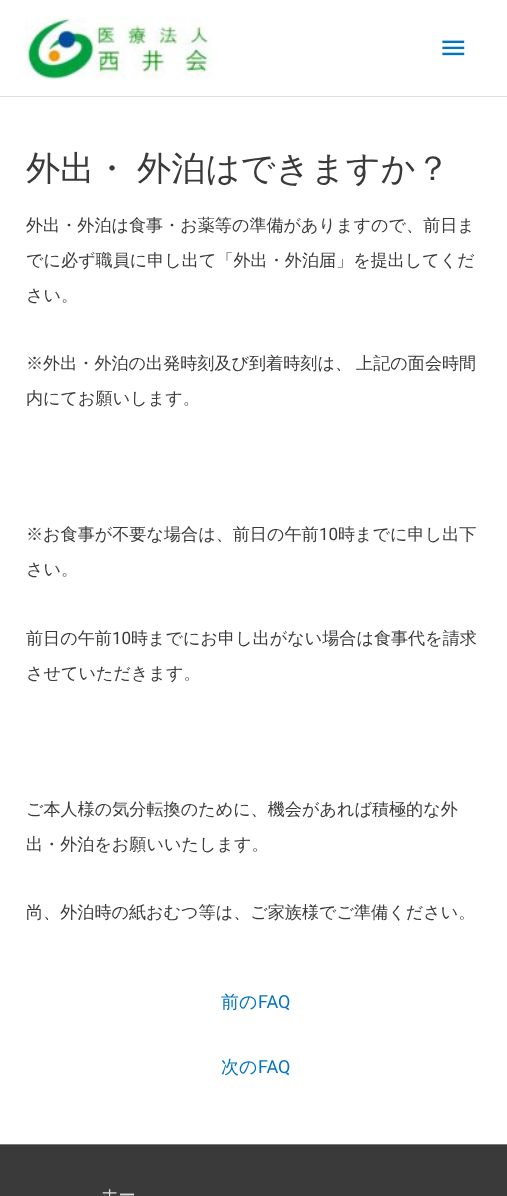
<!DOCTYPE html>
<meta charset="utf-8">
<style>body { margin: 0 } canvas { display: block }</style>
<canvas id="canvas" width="507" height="1196"></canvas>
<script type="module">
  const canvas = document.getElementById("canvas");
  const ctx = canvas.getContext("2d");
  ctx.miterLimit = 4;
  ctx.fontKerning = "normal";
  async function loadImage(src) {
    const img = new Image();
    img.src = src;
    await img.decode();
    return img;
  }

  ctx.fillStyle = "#ffffff";
  ctx.fillRect(0, 0, 507, 1196);
  ctx.fillStyle = "#dddddd";
  ctx.fillRect(0, 96, 507, 1);
  ctx.drawImage(await loadImage("img1.png"), 25, 17, 188, 63);
  ctx.drawImage(await loadImage("img2.png"), 442, 40, 23, 16);
  ctx.wordSpacing = "-2px";
  ctx.font = "500 34.25px WenQuanYi Zen Hei";
  ctx.fillStyle = "#3a3a3a";
  ctx.fillText("外出・ 外泊はできますか？", 26, 180);
  ctx.wordSpacing = "0px";
  ctx.font = "500 17.1px WenQuanYi Zen Hei";
  ctx.fillText("外出・外泊は食事・お薬等の準備がありますので、前日ま", 26, 231);
  ctx.fillText("でに必ず職員に申し出て「外出・外泊届」を提出してくだ", 26, 266);
  ctx.fillText("さい。", 26, 301);
  ctx.wordSpacing = "-1px";
  ctx.fillText("※外出・外泊の出発時刻及び到着時刻は、 上記の面会時間", 26, 369);
  ctx.wordSpacing = "0px";
  ctx.fillText("内にてお願いします。", 26, 404);
  ctx.fillText("※お食事が不要な場合は、前日の午前", 26, 540);
  ctx.font = "17.1px Roboto";
  ctx.fillText("10", 319, 540);
  ctx.font = "500 17.1px WenQuanYi Zen Hei";
  ctx.fillText("時までに申し出下", 338, 540);
  ctx.fillText("さい。", 26, 575);
  ctx.fillText("前日の午前", 26, 644);
  ctx.font = "17.1px Roboto";
  ctx.fillText("10", 112, 644);
  ctx.font = "500 17.1px WenQuanYi Zen Hei";
  ctx.fillText("時までにお申し出がない場合は食事代を請求", 131, 644);
  ctx.fillText("させていただきます。", 26, 679);
  ctx.fillText("ご本人様の気分転換のために、機会があれば積極的な外", 26, 815);
  ctx.fillText("出・外泊をお願いいたします。", 26, 850);
  ctx.fillText("尚、外泊時の紙おむつ等は、ご家族様でご準備ください。", 26, 918);
  ctx.font = "500 18px WenQuanYi Zen Hei";
  ctx.fillStyle = "#0274be";
  ctx.fillText("前の", 221, 1008);
  ctx.font = "18px Roboto";
  ctx.fillText("FAQ", 258, 1008);
  ctx.font = "500 18px WenQuanYi Zen Hei";
  ctx.fillText("次の", 221, 1073);
  ctx.font = "18px Roboto";
  ctx.fillText("FAQ", 258, 1073);
  ctx.fillStyle = "#7a7a7a";
  ctx.fillRect(0, 1144, 507, 1);
  ctx.fillStyle = "#3a3a3a";
  ctx.fillRect(0, 1145, 507, 51);
  ctx.font = "500 17.1px WenQuanYi Zen Hei";
  ctx.fillStyle = "#dddddd";
  ctx.fillText("ホー", 101, 1201);
</script>
